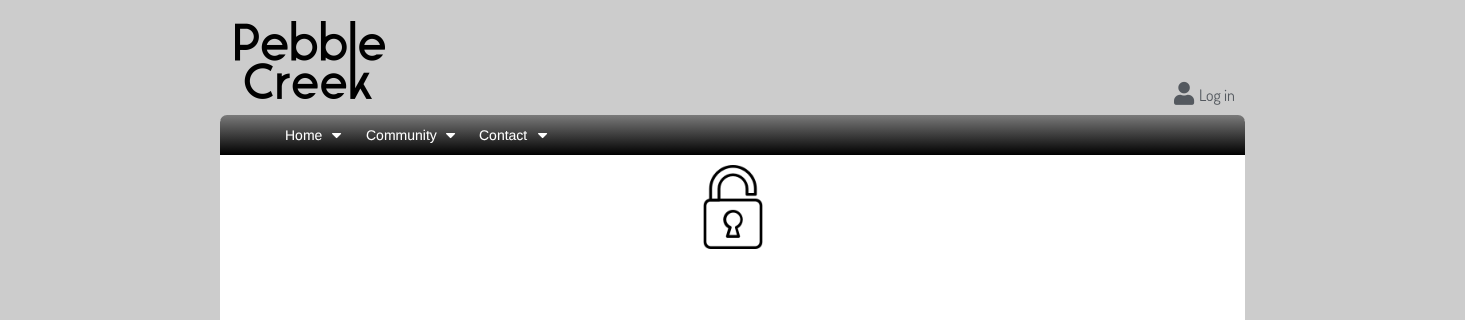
<!DOCTYPE html>
<meta charset="utf-8">
<style>body { margin: 0 } canvas { display: block }</style>
<canvas id="canvas" width="1465" height="320"></canvas>
<script type="module">
  const canvas = document.getElementById("canvas");
  const ctx = canvas.getContext("2d");
  ctx.miterLimit = 4;
  ctx.fontKerning = "normal";
  async function loadImage(src) {
    const img = new Image();
    img.src = src;
    await img.decode();
    return img;
  }
  let gradient;

  ctx.fillStyle = "#cccccc";
  ctx.fillRect(0, 0, 1465, 320);
  ctx.fillStyle = "#ffffff";
  ctx.fillRect(220, 120, 1025, 200);
  ctx.drawImage(await loadImage("img1.png"), 235, 21, 150, 78);
  ctx.drawImage(await loadImage("img2.png"), 1174, 81, 21, 24);
  ctx.font = "16px Dosis";
  ctx.fillStyle = "#54595f";
  ctx.fillText("Log in", 1199, 101);
  gradient = ctx.createLinearGradient(733, 115, 733, 155);
  gradient.addColorStop(0, "#7a7a7a");
  gradient.addColorStop(1, "#000000");
  ctx.fillStyle = gradient;
  ctx.beginPath();
  ctx.roundRect(220, 115, 1025, 40, [7, 7, 0, 0]);
  ctx.fill();
  ctx.font = "14px Liberation Sans";
  ctx.fillStyle = "#ffffff";
  ctx.fillText("Home", 285, 140);
  ctx.drawImage(await loadImage("img3.png"), 332, 133, 10, 6);
  ctx.fillText("Community", 366, 140);
  ctx.drawImage(await loadImage("img3.png"), 446, 133, 10, 6);
  ctx.fillText("Contact", 479, 140);
  ctx.drawImage(await loadImage("img3.png"), 538, 133, 10, 6);
  ctx.drawImage(await loadImage("img4.png"), 703, 165, 60, 84);
</script>
